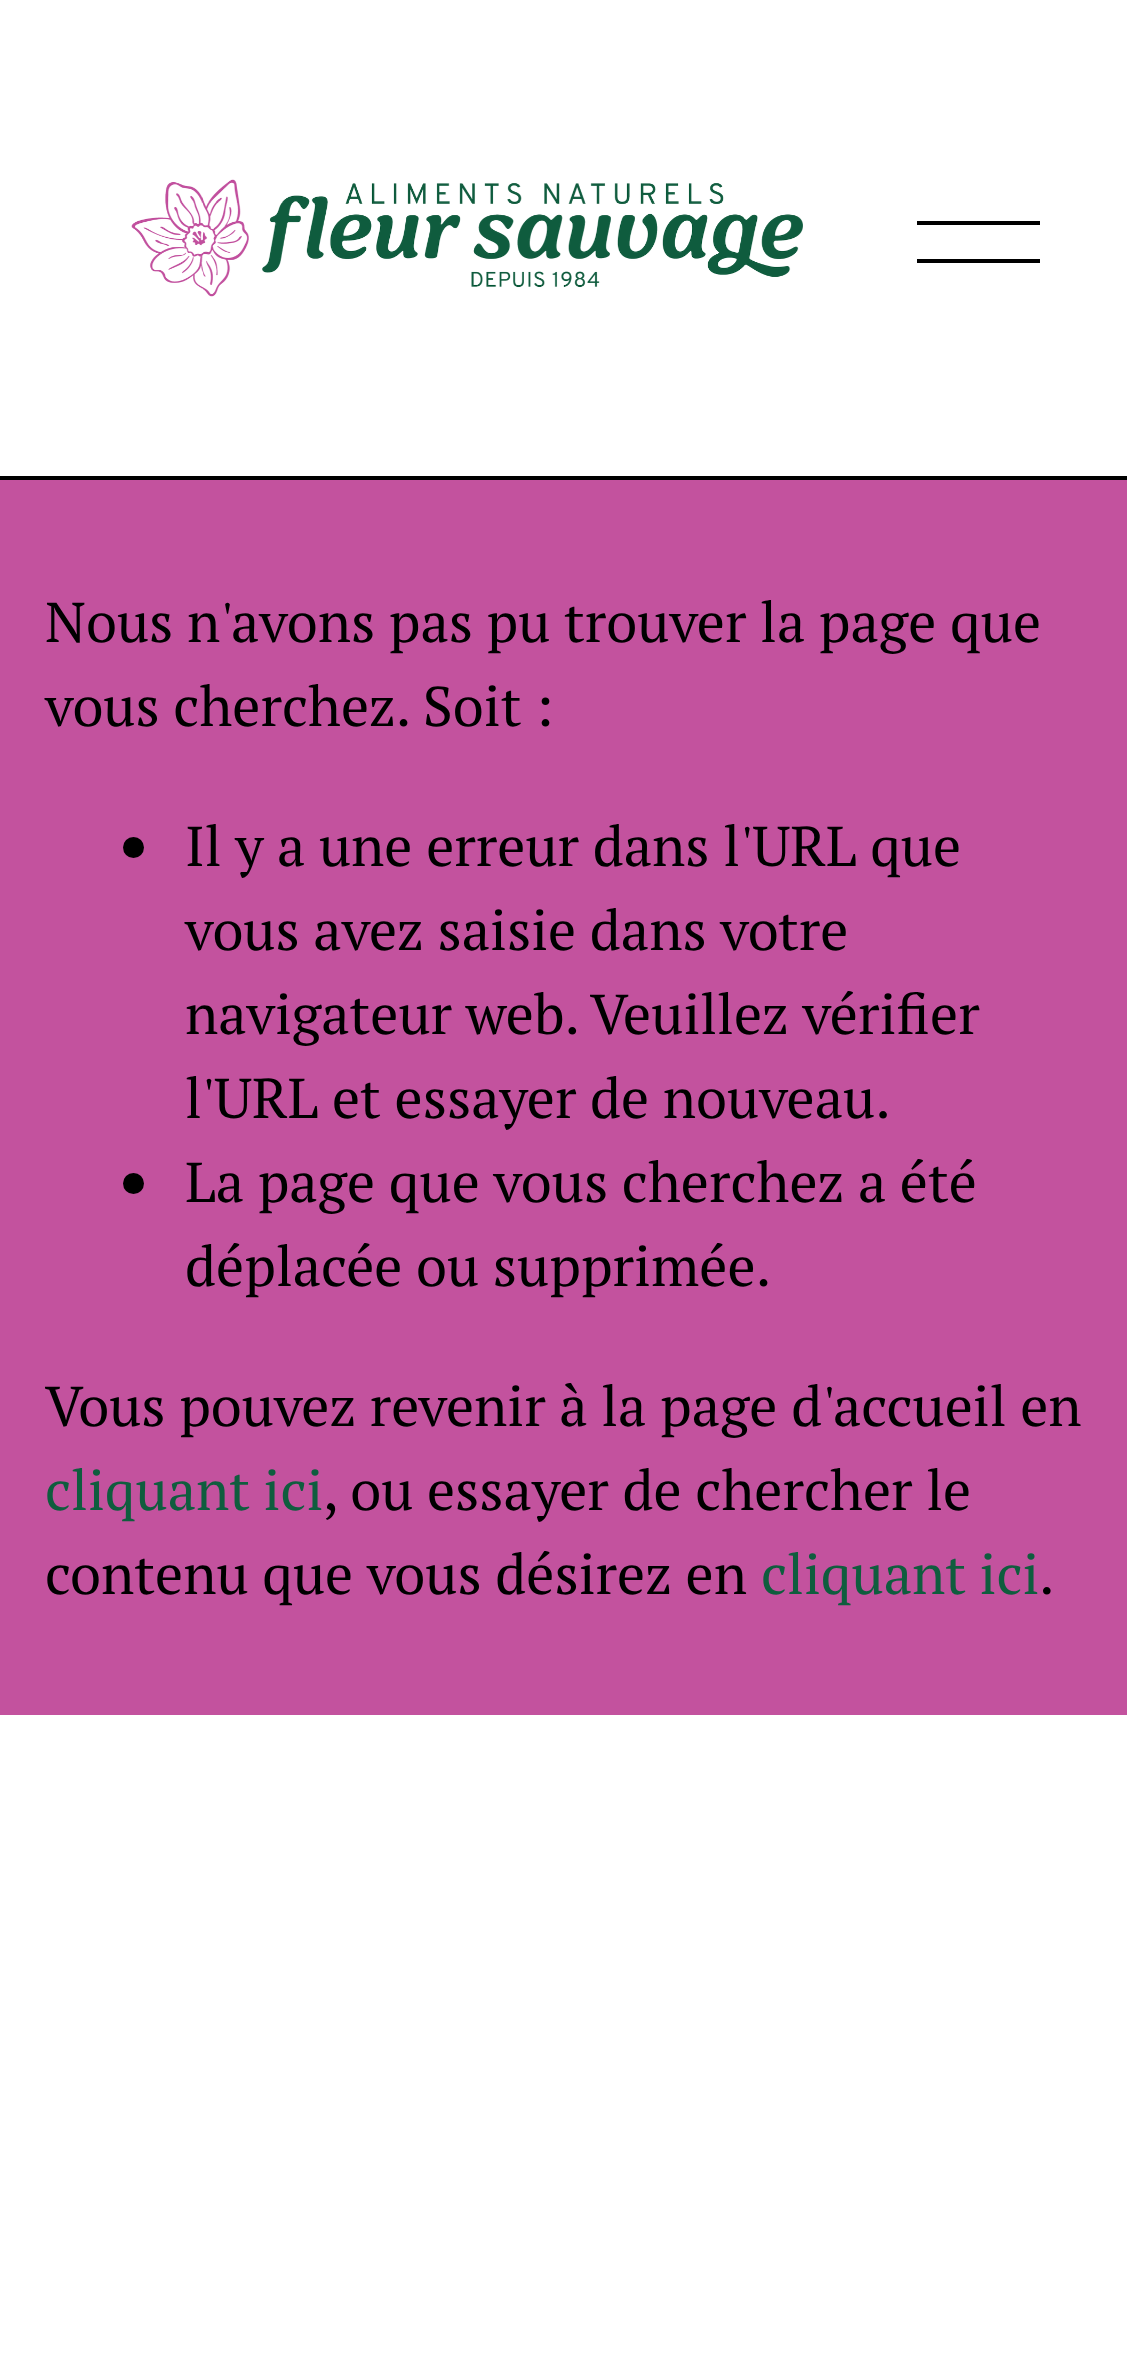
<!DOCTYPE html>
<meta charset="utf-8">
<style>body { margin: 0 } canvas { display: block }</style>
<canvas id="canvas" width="1127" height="2369"></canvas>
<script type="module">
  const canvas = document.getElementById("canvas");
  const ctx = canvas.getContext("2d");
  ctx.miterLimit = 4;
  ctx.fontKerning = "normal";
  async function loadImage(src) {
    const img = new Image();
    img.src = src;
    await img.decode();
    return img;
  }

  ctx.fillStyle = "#c3529e";
  ctx.fillRect(0, 0, 1127, 2369);
  ctx.fillStyle = "#ffffff";
  ctx.fillRect(0, 0, 1127, 476);
  ctx.drawImage(await loadImage("img1.png"), 131, 179, 672, 118);
  ctx.fillStyle = "#000000";
  ctx.fillRect(917, 221, 123, 4);
  ctx.fillRect(917, 259, 123, 4);
  ctx.fillRect(0, 476, 1127, 4);
  ctx.font = "56px PT Serif";
  ctx.fillText("Nous n'avons pas pu trouver la page que", 45, 642);
  ctx.fillText("vous cherchez. Soit :", 45, 726);
  ctx.beginPath();
  ctx.arc(133.5, 847.5, 10.5, 0, Math.PI * 2);
  ctx.fill();
  ctx.fillText("Il y a une erreur dans l'URL que", 185, 866);
  ctx.fillText("vous avez saisie dans votre", 185, 950);
  ctx.fillText("navigateur web. Veuillez vérifier", 185, 1034);
  ctx.fillText("l'URL et essayer de nouveau.", 185, 1118);
  ctx.beginPath();
  ctx.arc(133.5, 1183.5, 10.5, 0, Math.PI * 2);
  ctx.fill();
  ctx.fillText("La page que vous cherchez a été", 185, 1202);
  ctx.fillText("déplacée ou supprimée.", 185, 1286);
  ctx.fillText("Vous pouvez revenir à la page d'accueil en", 45, 1426);
  ctx.fillStyle = "#0f5d3e";
  ctx.fillText("cliquant ici", 45, 1510);
  ctx.fillStyle = "#000000";
  ctx.fillText(", ou essayer de chercher le", 323, 1510);
  ctx.fillText("contenu que vous désirez en", 45, 1594);
  ctx.fillStyle = "#0f5d3e";
  ctx.fillText("cliquant ici", 761, 1594);
  ctx.fillStyle = "#000000";
  ctx.fillText(".", 1039, 1594);
  ctx.fillStyle = "#ffffff";
  ctx.fillRect(0, 1715, 1127, 654);
</script>
